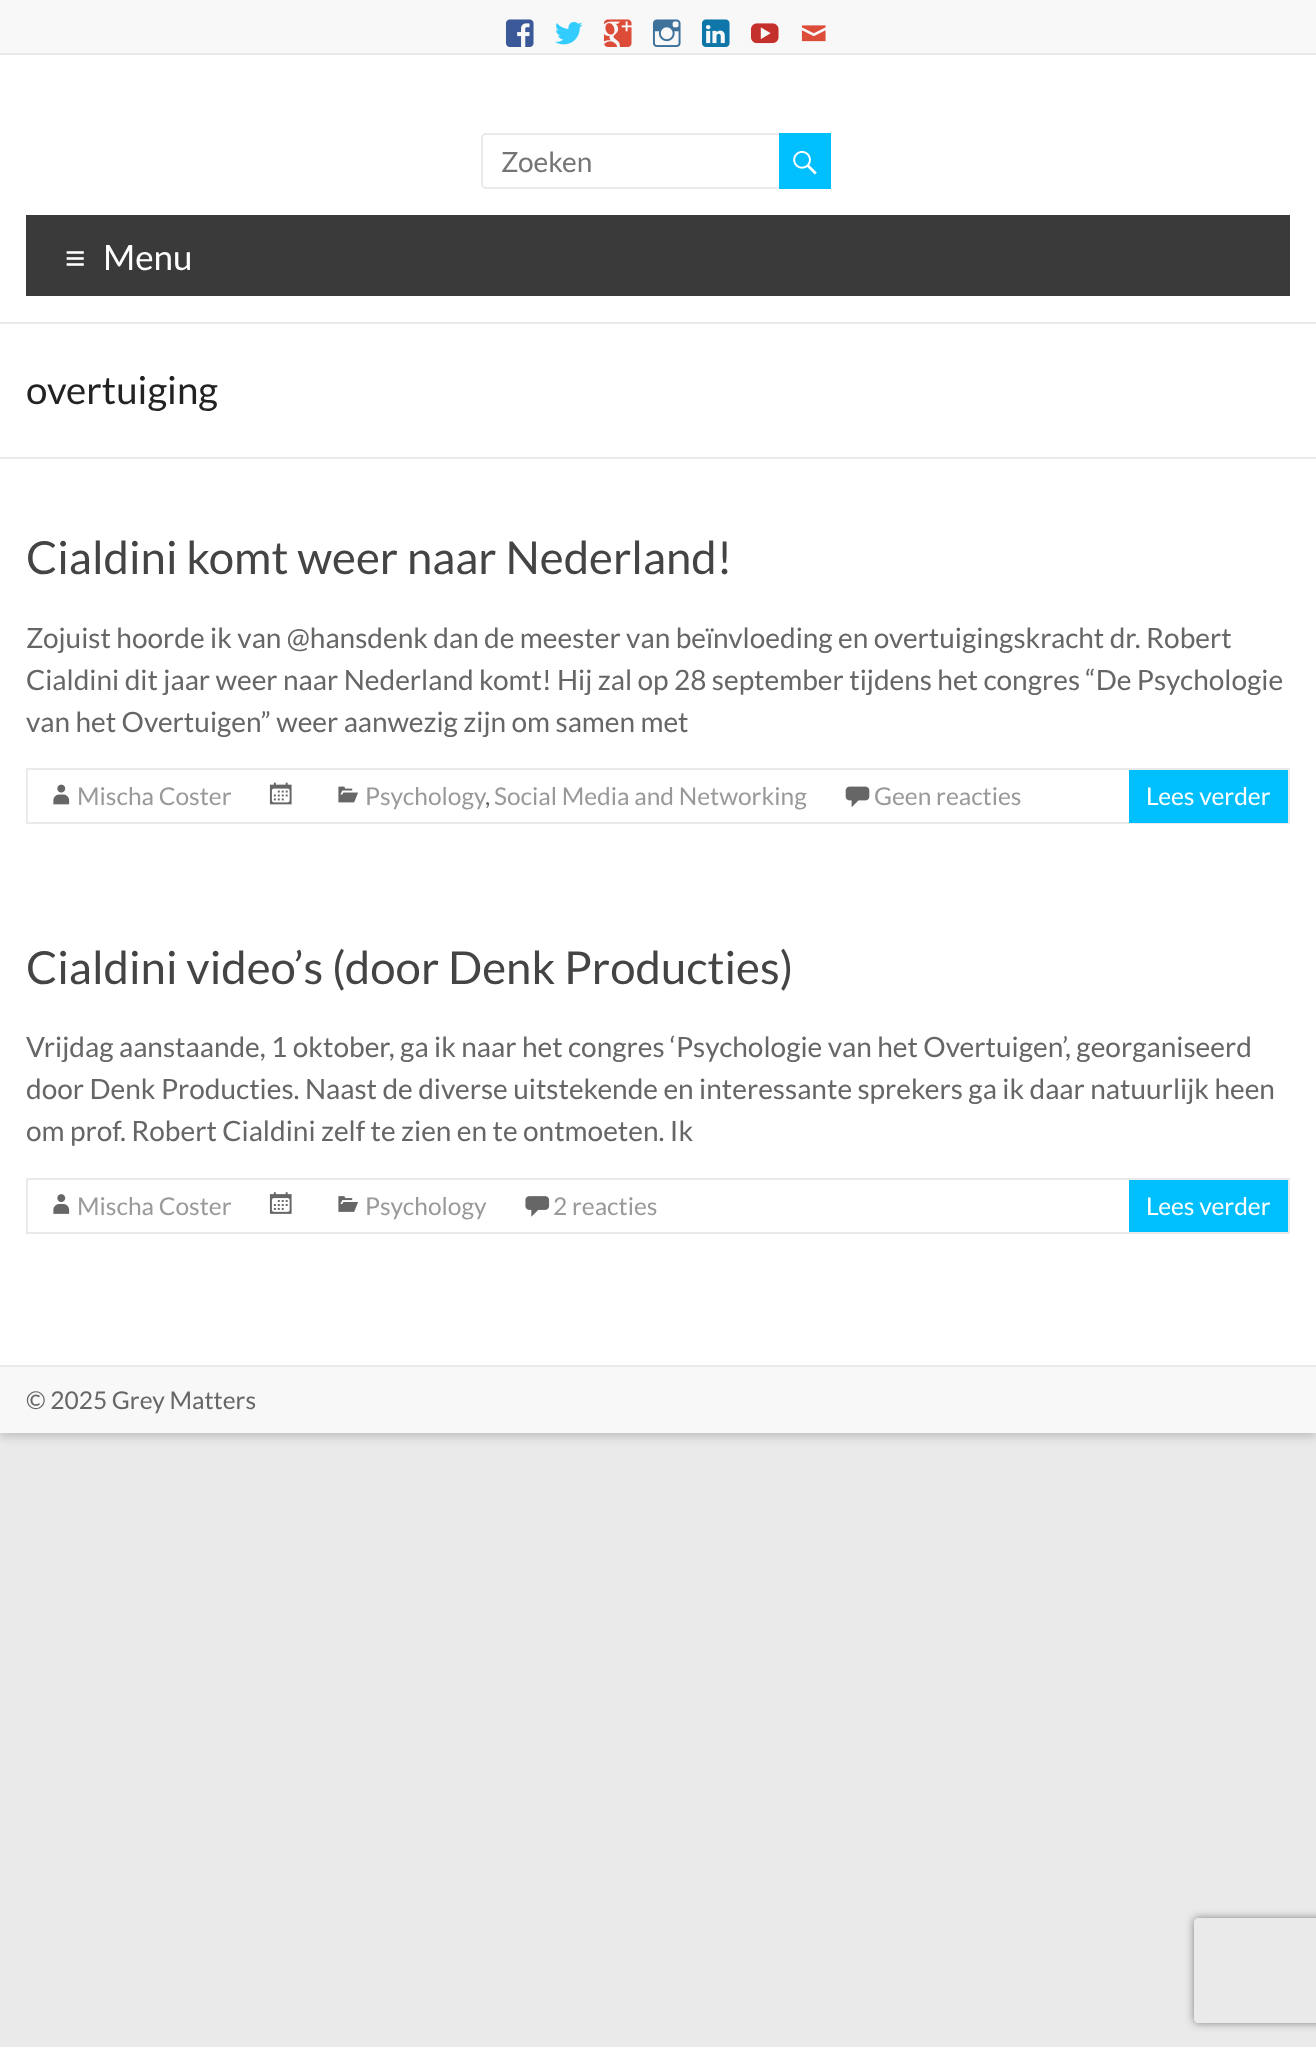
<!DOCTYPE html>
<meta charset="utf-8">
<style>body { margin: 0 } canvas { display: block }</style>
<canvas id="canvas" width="1316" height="2047"></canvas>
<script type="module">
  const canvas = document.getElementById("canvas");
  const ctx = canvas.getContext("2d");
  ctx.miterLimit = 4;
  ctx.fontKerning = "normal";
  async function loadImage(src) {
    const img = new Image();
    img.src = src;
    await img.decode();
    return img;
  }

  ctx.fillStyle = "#eaeaea";
  ctx.fillRect(0, 0, 1316, 2047);
  ctx.fillStyle = "rgba(100, 100, 100, 0.3)";
  ctx.filter = "blur(5px)";
  ctx.beginPath();
  ctx.rect(0, 4, 1316, 1433);
  ctx.fill();
  ctx.filter = "none";
  ctx.fillStyle = "#ffffff";
  ctx.fillRect(0, 55, 1316, 1310);
  ctx.fillStyle = "#f8f8f8";
  ctx.fillRect(0, 0, 1316, 53);
  ctx.fillStyle = "#eaeaea";
  ctx.fillRect(0, 53, 1316, 2);
  ctx.drawImage(await loadImage("img1.png"), 505, 19, 29, 28);
  ctx.drawImage(await loadImage("img2.png"), 555, 22, 28, 23);
  ctx.drawImage(await loadImage("img3.png"), 603, 19, 29, 28);
  ctx.drawImage(await loadImage("img4.png"), 652, 19, 29, 28);
  ctx.drawImage(await loadImage("img5.png"), 701, 19, 29, 28);
  ctx.drawImage(await loadImage("img6.png"), 750, 23, 29, 21);
  ctx.drawImage(await loadImage("img7.png"), 801, 25, 25, 17);
  ctx.fillRect(0, 322, 1316, 2);
  ctx.beginPath();
  ctx.roundRect(482, 134, 299, 54, 4);
  ctx.strokeStyle = "#eaeaea";
  ctx.lineWidth = 2;
  ctx.stroke();
  ctx.font = "28px Lato";
  ctx.fillStyle = "#757575";
  ctx.fillText("Zoeken", 501, 172);
  ctx.fillStyle = "#00bfff";
  ctx.fillRect(779, 133, 52, 56);
  ctx.drawImage(await loadImage("img8.png"), 793, 150, 24, 25);
  ctx.fillStyle = "#3a3a3a";
  ctx.fillRect(26, 215, 1264, 81);
  ctx.font = "35px Liberation Sans";
  ctx.fillStyle = "#ffffff";
  ctx.fillText("≡", 65, 270);
  ctx.font = "35px Lato";
  ctx.fillText("Menu", 103, 270);
  ctx.fillStyle = "#eaeaea";
  ctx.fillRect(0, 457, 1316, 2);
  ctx.font = "38.5px Lato";
  ctx.fillStyle = "#222222";
  ctx.fillText("overtuiging", 26, 404);
  ctx.font = "45.5px Lato";
  ctx.fillStyle = "#444444";
  ctx.fillText("Cialdini komt weer naar Nederland!", 26, 574);
  ctx.font = "28px Lato";
  ctx.fillStyle = "#666666";
  ctx.fillText("Zojuist hoorde ik van @hansdenk dan de meester van beïnvloeding en overtuigingskracht dr. Robert", 26, 648);
  ctx.fillText("Cialdini dit jaar weer naar Nederland komt! Hij zal op 28 september tijdens het congres “De Psychologie", 26, 690);
  ctx.fillText("van het Overtuigen” weer aanwezig zijn om samen met", 26, 732);
  ctx.strokeRect(27, 769, 1262, 54);
  ctx.drawImage(await loadImage("img9.png"), 53, 784, 17, 21);
  ctx.font = "24.5px Lato";
  ctx.fillStyle = "#999999";
  ctx.fillText("Mischa Coster", 77, 805);
  ctx.drawImage(await loadImage("img10.png"), 269, 782, 23, 23);
  ctx.drawImage(await loadImage("img11.png"), 338, 786, 20, 17);
  ctx.fillText("Psychology", 365, 805);
  ctx.fillStyle = "#666666";
  ctx.fillText(",", 485, 805);
  ctx.fillStyle = "#999999";
  ctx.fillText("Social Media and Networking", 494, 805);
  ctx.drawImage(await loadImage("img12.png"), 845, 786, 25, 22);
  ctx.fillText("Geen reacties", 874, 805);
  ctx.fillStyle = "#00bfff";
  ctx.fillRect(1129, 770, 159, 53);
  ctx.fillStyle = "#ffffff";
  ctx.fillText("Lees verder", 1146, 805);
  ctx.font = "45.5px Lato";
  ctx.fillStyle = "#444444";
  ctx.fillText("Cialdini video’s (door Denk Producties)", 26, 984);
  ctx.font = "28px Lato";
  ctx.fillStyle = "#666666";
  ctx.fillText("Vrijdag aanstaande, 1 oktober, ga ik naar het congres ‘Psychologie van het Overtuigen’, georganiseerd", 26, 1057);
  ctx.fillText("door Denk Producties. Naast de diverse uitstekende en interessante sprekers ga ik daar natuurlijk heen", 26, 1099);
  ctx.fillText("om prof. Robert Cialdini zelf te zien en te ontmoeten. Ik", 26, 1141);
  ctx.strokeRect(27, 1179, 1262, 54);
  ctx.drawImage(await loadImage("img13.png"), 53, 1194, 17, 20);
  ctx.font = "24.5px Lato";
  ctx.fillStyle = "#999999";
  ctx.fillText("Mischa Coster", 77, 1215);
  ctx.drawImage(await loadImage("img14.png"), 269, 1192, 23, 22);
  ctx.drawImage(await loadImage("img15.png"), 338, 1196, 20, 16);
  ctx.fillText("Psychology", 365, 1215);
  ctx.drawImage(await loadImage("img16.png"), 525, 1196, 25, 21);
  ctx.fillText("2 reacties", 553, 1215);
  ctx.fillStyle = "#00bfff";
  ctx.fillRect(1129, 1180, 159, 52);
  ctx.fillStyle = "#ffffff";
  ctx.fillText("Lees verder", 1146, 1215);
  ctx.fillStyle = "#f8f8f8";
  ctx.fillRect(0, 1367, 1316, 66);
  ctx.fillStyle = "#eaeaea";
  ctx.fillRect(0, 1365, 1316, 2);
  ctx.fillStyle = "#666666";
  ctx.fillText("© 2025 Grey Matters", 26, 1409);
  ctx.save();
  ctx.beginPath();
  ctx.moveTo(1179, 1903);
  ctx.lineTo(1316, 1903);
  ctx.lineTo(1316, 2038);
  ctx.lineTo(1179, 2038);
  ctx.closePath();
  ctx.moveTo(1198, 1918);
  ctx.lineTo(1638, 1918);
  ctx.bezierCurveTo(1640, 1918, 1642, 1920, 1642, 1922);
  ctx.lineTo(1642, 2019);
  ctx.bezierCurveTo(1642, 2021, 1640, 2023, 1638, 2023);
  ctx.lineTo(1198, 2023);
  ctx.bezierCurveTo(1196, 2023, 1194, 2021, 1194, 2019);
  ctx.lineTo(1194, 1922);
  ctx.bezierCurveTo(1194, 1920, 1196, 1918, 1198, 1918);
  ctx.closePath();
  ctx.clip("evenodd");
  ctx.fillStyle = "#808080";
  ctx.filter = "blur(4.5px)";
  ctx.beginPath();
  ctx.roundRect(1194, 1918, 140, 105, 4);
  ctx.fill();
  ctx.filter = "none";
  ctx.restore();
</script>
